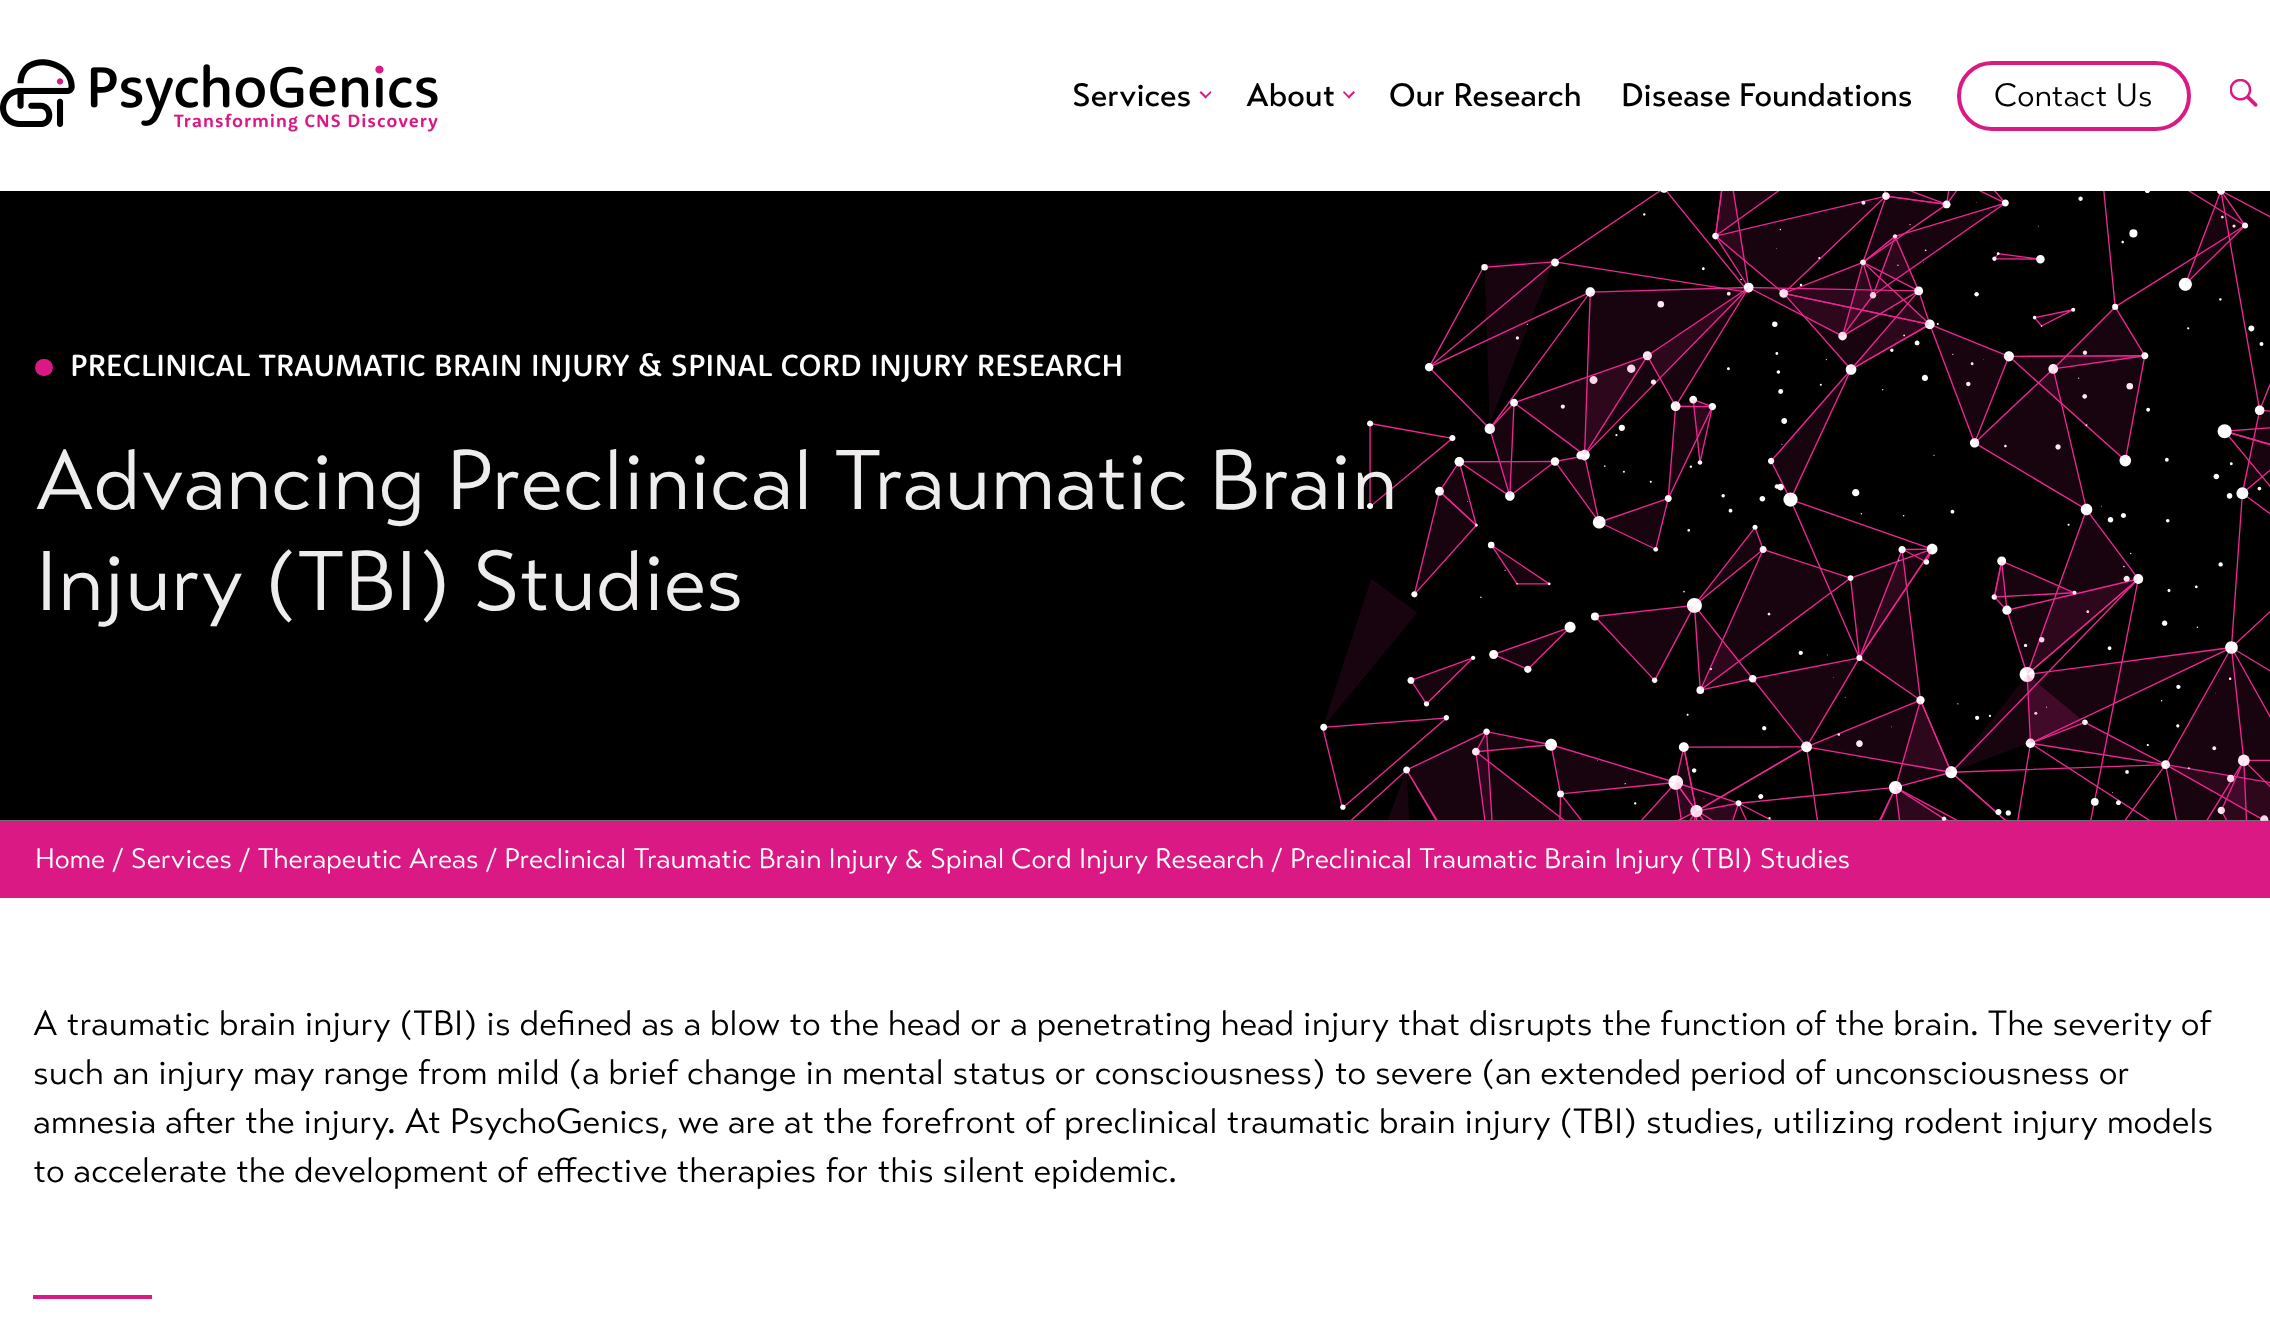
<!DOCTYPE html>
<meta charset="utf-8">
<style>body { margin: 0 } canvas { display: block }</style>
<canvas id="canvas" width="2270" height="1330"></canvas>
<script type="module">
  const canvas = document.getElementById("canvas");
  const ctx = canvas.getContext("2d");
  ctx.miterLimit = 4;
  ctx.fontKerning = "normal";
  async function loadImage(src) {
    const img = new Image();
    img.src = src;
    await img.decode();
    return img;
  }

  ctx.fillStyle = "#ffffff";
  ctx.fillRect(0, 0, 2270, 1330);
  ctx.drawImage(await loadImage("img1.png"), 0, 59, 438, 73);
  ctx.font = "500 32.25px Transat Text";
  ctx.fillStyle = "#000000";
  ctx.fillText("Services", 1072, 106);
  ctx.fillStyle = "#da1984";
  ctx.beginPath();
  ctx.moveTo(1210.5, 91);
  ctx.lineTo(1211.5, 92.5);
  ctx.lineTo(1205.5, 98.5);
  ctx.lineTo(1204.5, 97);
  ctx.closePath();
  ctx.fill();
  ctx.beginPath();
  ctx.moveTo(1201, 91);
  ctx.lineTo(1207, 97);
  ctx.lineTo(1205.5, 98.5);
  ctx.lineTo(1199.5, 92.5);
  ctx.closePath();
  ctx.fill();
  ctx.fillStyle = "#000000";
  ctx.fillText("About", 1246, 106);
  ctx.fillStyle = "#da1984";
  ctx.beginPath();
  ctx.moveTo(1353.5, 91);
  ctx.lineTo(1355, 92.5);
  ctx.lineTo(1349, 98.5);
  ctx.lineTo(1347.5, 97);
  ctx.closePath();
  ctx.fill();
  ctx.beginPath();
  ctx.moveTo(1344, 91);
  ctx.lineTo(1350, 97);
  ctx.lineTo(1349, 98.5);
  ctx.lineTo(1343, 92.5);
  ctx.closePath();
  ctx.fill();
  ctx.fillStyle = "#000000";
  ctx.fillText("Our Research", 1389, 106);
  ctx.fillText("Disease Foundations", 1621, 106);
  ctx.beginPath();
  ctx.roundRect(1959, 63, 230, 66, 33);
  ctx.strokeStyle = "#da1984";
  ctx.lineWidth = 4;
  ctx.stroke();
  ctx.font = "32.25px Transat Text";
  ctx.fillText("Contact Us", 1994, 106);
  ctx.drawImage(await loadImage("img2.png"), 2230, 79, 28, 28);
  ctx.drawImage(await loadImage("img3.png"), 0, 191, 2270, 630);
  ctx.fillStyle = "#da1984";
  ctx.beginPath();
  ctx.roundRect(35, 359, 18, 17, 8.5);
  ctx.fill();
  ctx.font = "500 31.5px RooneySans";
  ctx.fillStyle = "#ffffff";
  ctx.fillText("PRECLINICAL TRAUMATIC BRAIN INJURY & SPINAL CORD INJURY RESEARCH", 70, 376);
  ctx.font = "84px Transat Text";
  ctx.fillStyle = "#eeeced";
  ctx.fillText("Advancing Preclinical Traumatic Brain", 35, 509);
  ctx.fillText("Injury (TBI) Studies", 35, 610);
  ctx.fillStyle = "#da1984";
  ctx.fillRect(0, 821, 2270, 77);
  ctx.font = "28px Transat Text";
  ctx.fillStyle = "#ffffff";
  ctx.fillText("Home / Services / Therapeutic Areas / Preclinical Traumatic Brain Injury & Spinal Cord Injury Research / Preclinical Traumatic Brain Injury (TBI) Studies", 35, 868);
  ctx.font = "35px Transat Text";
  ctx.fillStyle = "#000000";
  ctx.fillText("A traumatic brain injury (TBI) is defined as a blow to the head or a penetrating head injury that disrupts the function of the brain. The severity of", 33, 1035);
  ctx.fillText("such an injury may range from mild (a brief change in mental status or consciousness) to severe (an extended period of unconsciousness or", 33, 1084);
  ctx.fillText("amnesia after the injury. At PsychoGenics, we are at the forefront of preclinical traumatic brain injury (TBI) studies, utilizing rodent injury models", 33, 1133);
  ctx.fillText("to accelerate the development of effective therapies for this silent epidemic.", 33, 1182);
  ctx.fillStyle = "#da1984";
  ctx.fillRect(33, 1295, 119, 4);
</script>
